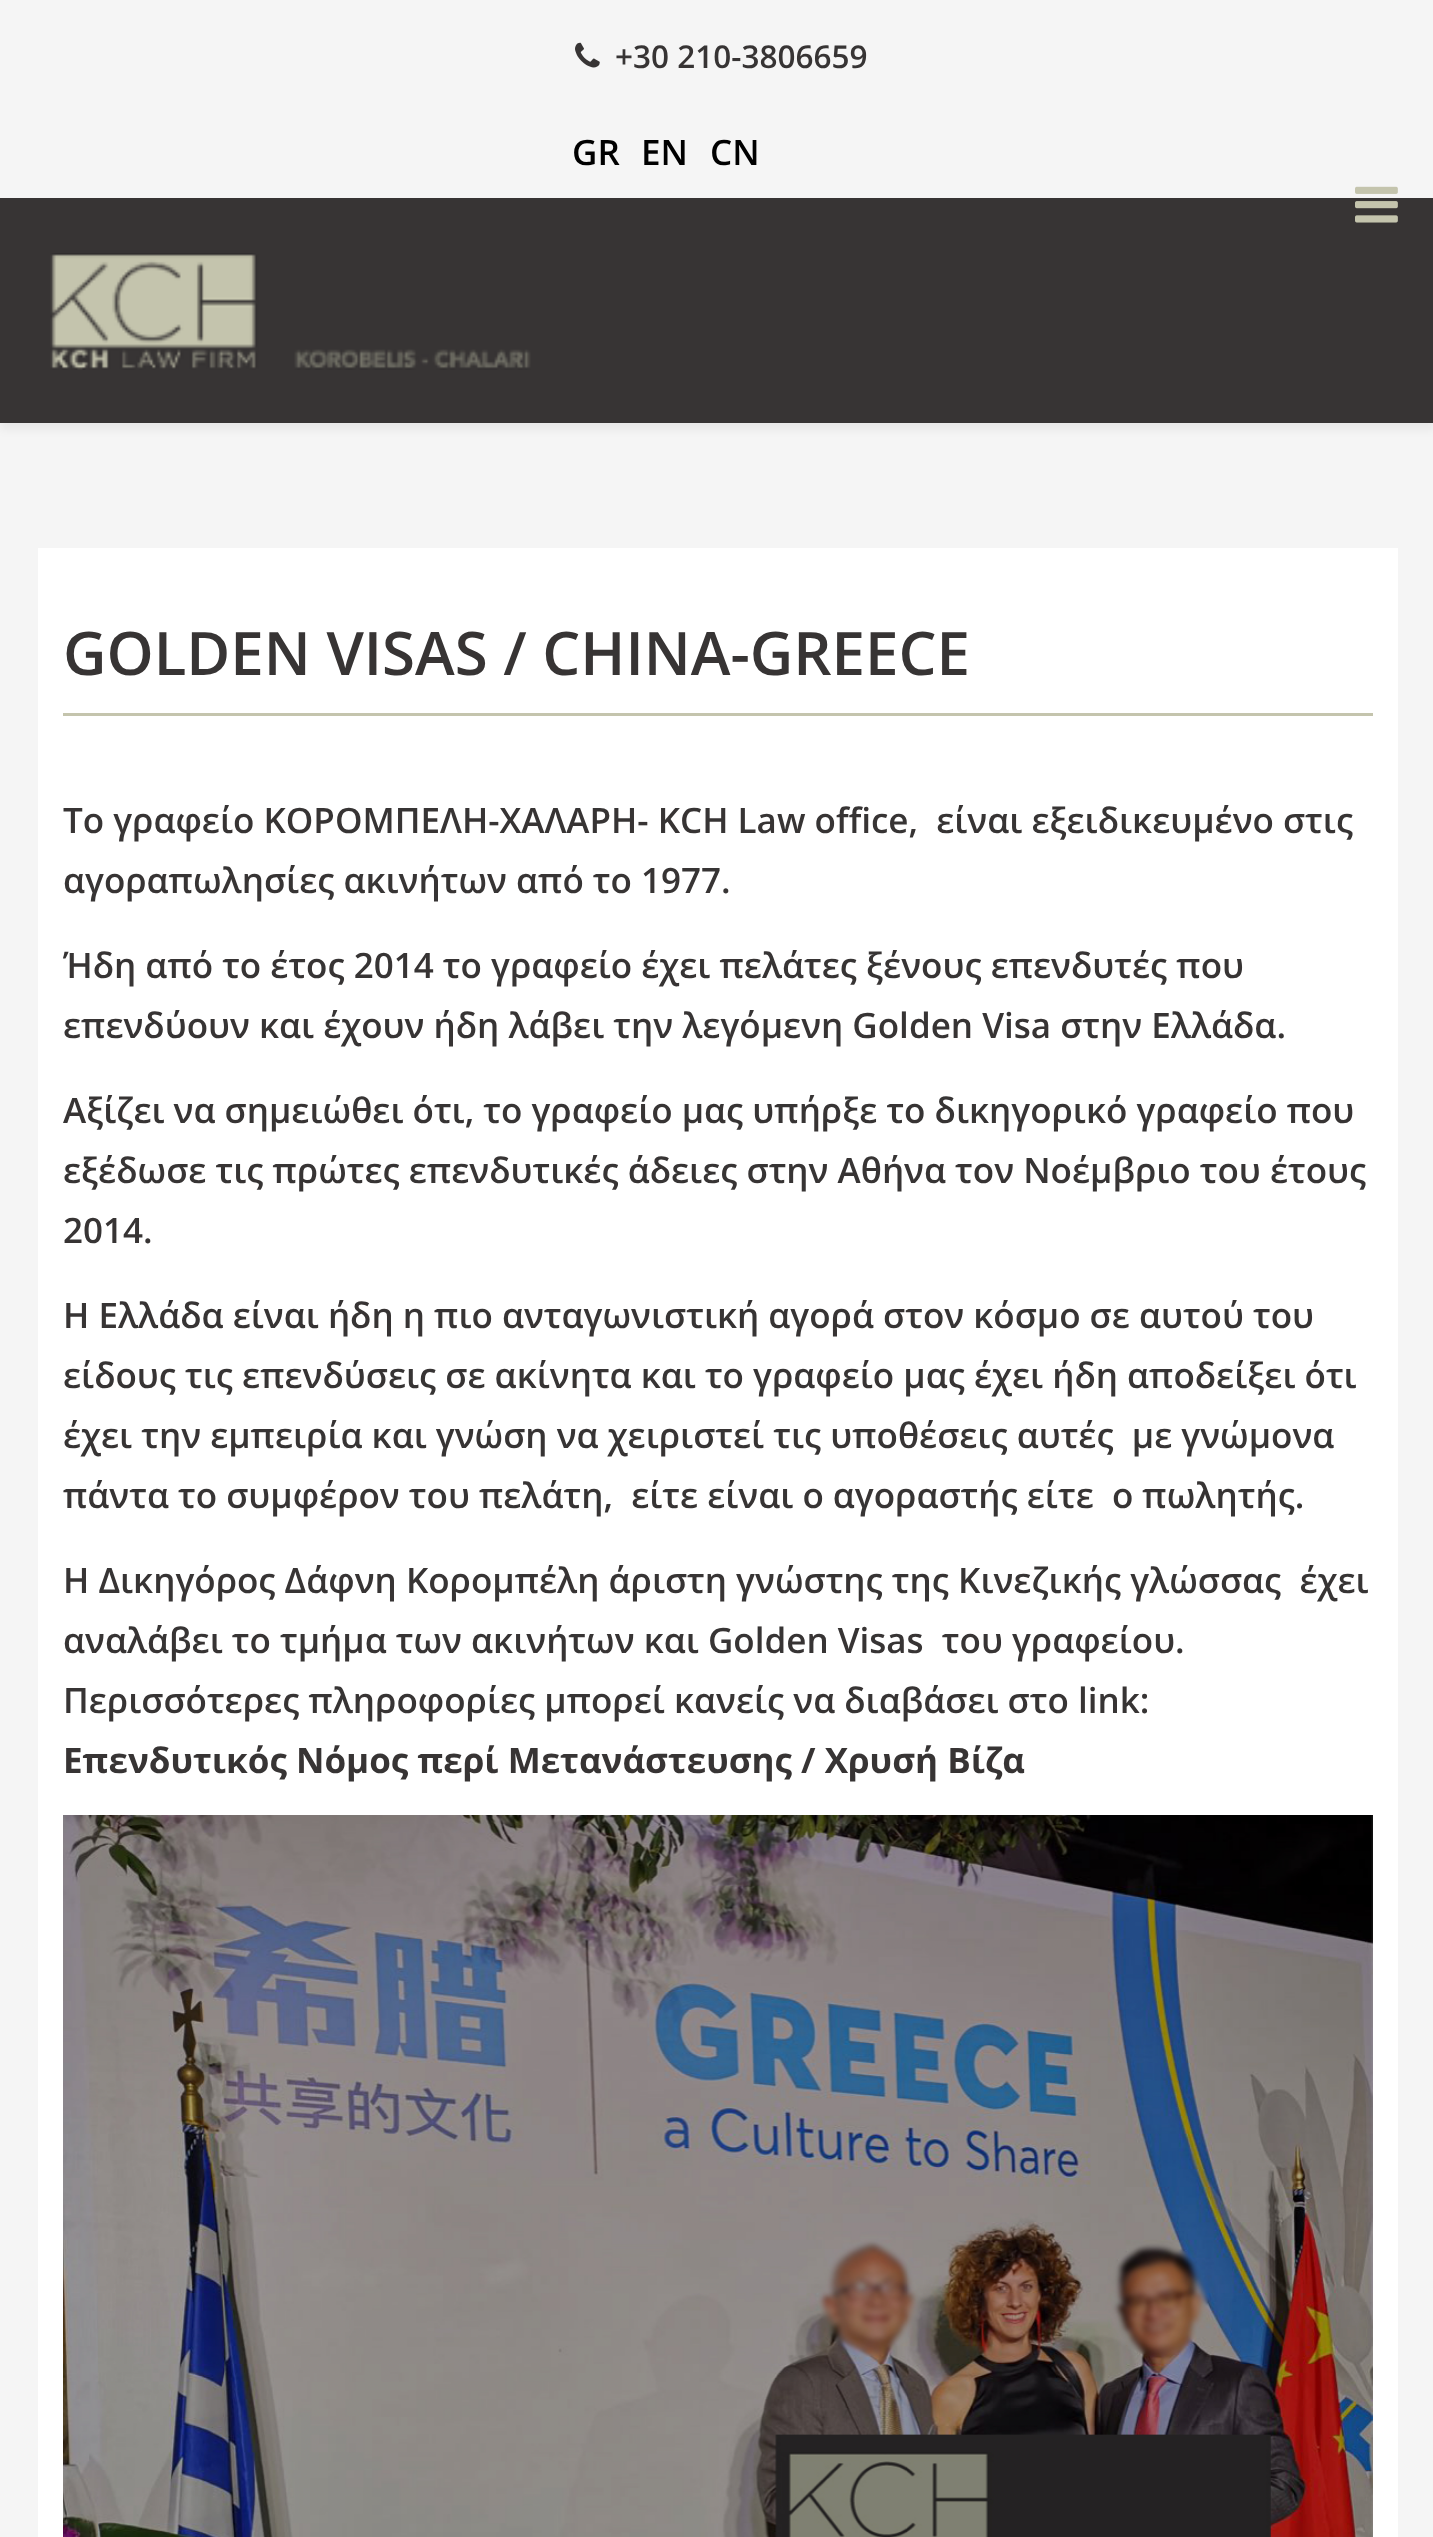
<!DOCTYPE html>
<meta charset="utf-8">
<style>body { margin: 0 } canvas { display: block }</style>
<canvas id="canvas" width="1433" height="2537"></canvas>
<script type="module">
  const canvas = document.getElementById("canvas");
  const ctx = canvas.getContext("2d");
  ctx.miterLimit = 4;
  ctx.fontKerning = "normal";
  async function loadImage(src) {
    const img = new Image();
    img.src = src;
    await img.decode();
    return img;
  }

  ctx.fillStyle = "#f5f5f5";
  ctx.fillRect(0, 0, 1433, 2537);
  ctx.drawImage(await loadImage("img1.png"), 575, 42, 25, 26);
  ctx.font = "600 31.5px Open Sans";
  ctx.fillStyle = "#373434";
  ctx.fillText("+30 210-3806659", 615, 68);
  ctx.font = "600 35px Open Sans";
  ctx.fillStyle = "#000000";
  ctx.fillText("GR", 572, 165);
  ctx.fillText("EN", 641, 165);
  ctx.fillText("CN", 710, 165);
  ctx.fillStyle = "rgba(0, 0, 0, 0.05)";
  ctx.filter = "blur(4px)";
  ctx.beginPath();
  ctx.rect(0, 205, 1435, 225);
  ctx.fill();
  ctx.filter = "none";
  ctx.fillStyle = "#373434";
  ctx.fillRect(0, 198, 1433, 225);
  ctx.drawImage(await loadImage("img2.png"), 1355, 186, 43, 37);
  ctx.drawImage(await loadImage("img3.png"), 50, 253, 481, 117);
  ctx.fillStyle = "#ffffff";
  ctx.fillRect(38, 548, 1360, 1989);
  ctx.fillStyle = "#c4c4ad";
  ctx.fillRect(63, 713, 1310, 3);
  ctx.font = "600 60px Open Sans";
  ctx.fillStyle = "#373434";
  ctx.fillText("GOLDEN VISAS / CHINA-GREECE", 63, 675);
  ctx.font = "600 35px Open Sans";
  ctx.fillText("Το γραφείο ΚΟΡΟΜΠΕΛΗ-ΧΑΛΑΡΗ- KCH Law office,  είναι εξειδικευμένο στις", 63, 833);
  ctx.fillText("αγοραπωλησίες ακινήτων από το 1977.", 63, 893);
  ctx.fillText("Ήδη από το έτος 2014 το γραφείο έχει πελάτες ξένους επενδυτές που", 63, 978);
  ctx.fillText("επενδύουν και έχουν ήδη λάβει την λεγόμενη Golden Visa στην Ελλάδα.", 63, 1038);
  ctx.fillText("Αξίζει να σημειώθει ότι, το γραφείο μας υπήρξε το δικηγορικό γραφείο που", 63, 1123);
  ctx.fillText("εξέδωσε τις πρώτες επενδυτικές άδειες στην Αθήνα τον Νοέμβριο του έτους", 63, 1183);
  ctx.fillText("2014.", 63, 1243);
  ctx.fillText("Η Ελλάδα είναι ήδη η πιο ανταγωνιστική αγορά στον κόσμο σε αυτού του", 63, 1328);
  ctx.fillText("είδους τις επενδύσεις σε ακίνητα και το γραφείο μας έχει ήδη αποδείξει ότι", 63, 1388);
  ctx.fillText("έχει την εμπειρία και γνώση να χειριστεί τις υποθέσεις αυτές  με γνώμονα", 63, 1448);
  ctx.fillText("πάντα το συμφέρον του πελάτη,  είτε είναι ο αγοραστής είτε  ο πωλητής.", 63, 1508);
  ctx.fillText("Η Δικηγόρος Δάφνη Κορομπέλη άριστη γνώστης της Κινεζικής γλώσσας  έχει", 63, 1593);
  ctx.fillText("αναλάβει το τμήμα των ακινήτων και Golden Visas  του γραφείου.", 63, 1653);
  ctx.fillText("Περισσότερες πληροφορίες μπορεί κανείς να διαβάσει στο link:", 63, 1713);
  ctx.font = "bold 35px Open Sans";
  ctx.fillText("Επενδυτικός Νόμος περί Μετανάστευσης / Χρυσή Βίζα", 63, 1773);
  ctx.drawImage(await loadImage("img4.png"), 63, 1815, 1310, 722);
</script>
